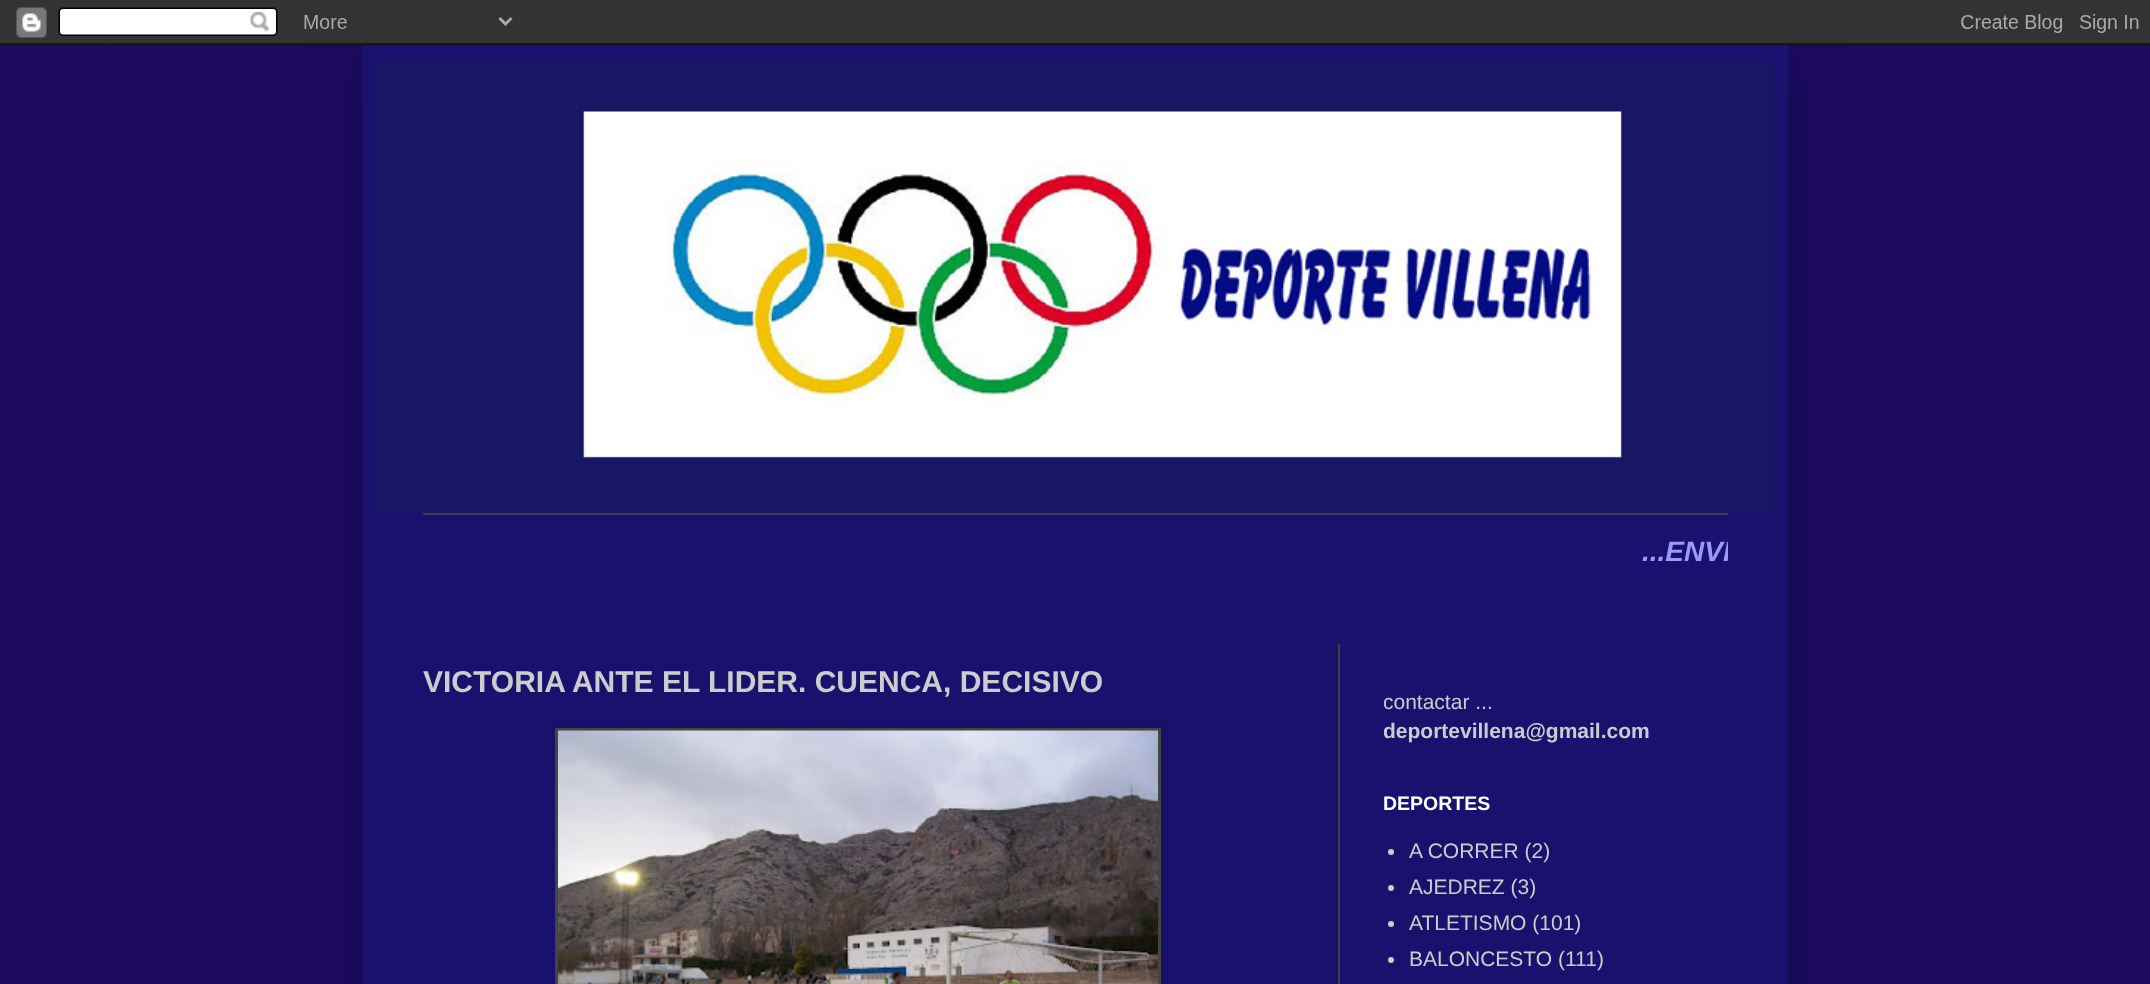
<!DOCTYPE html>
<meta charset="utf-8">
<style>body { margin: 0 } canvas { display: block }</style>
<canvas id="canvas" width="2150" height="984"></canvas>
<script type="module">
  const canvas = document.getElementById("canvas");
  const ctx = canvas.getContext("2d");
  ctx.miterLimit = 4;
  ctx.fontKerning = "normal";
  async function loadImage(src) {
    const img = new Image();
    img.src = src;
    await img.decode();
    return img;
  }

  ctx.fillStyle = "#1c0b61";
  ctx.fillRect(0, 0, 2150, 984);
  ctx.fillStyle = "rgba(0, 0, 0, 0.15)";
  ctx.filter = "blur(30px)";
  ctx.beginPath();
  ctx.rect(363, 45, 1425, 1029);
  ctx.fill();
  ctx.filter = "none";
  ctx.drawImage(await loadImage("img1.png"), 0, 0, 2150, 45);
  ctx.fillStyle = "#1a116e";
  ctx.fillRect(363, 45, 1425, 939);
  ctx.drawImage(await loadImage("img2.png"), 378, 60, 1395, 453);
  ctx.fillStyle = "#404040";
  ctx.fillRect(423, 513, 1305, 2);
  ctx.save();
  ctx.beginPath();
  ctx.rect(423, 536, 1305, 33);
  ctx.clip();
  ctx.font = "italic bold 28px Liberation Sans";
  ctx.fillStyle = "#9999ff";
  ctx.fillText("...ENVI", 1642, 561);
  ctx.restore();
  ctx.fillRect(1338, 644, 2, 340);
  ctx.font = "bold 30px Liberation Sans";
  ctx.fillStyle = "#cccccc";
  ctx.fillText("VICTORIA ANTE EL LIDER. CUENCA, DECISIVO", 423, 692);
  ctx.fillStyle = "rgba(0, 0, 0, 0.1)";
  ctx.filter = "blur(4px)";
  ctx.beginPath();
  ctx.rect(557, 729, 606, 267);
  ctx.fill();
  ctx.filter = "none";
  ctx.fillStyle = "#444444";
  ctx.fillRect(555, 728, 606, 256);
  ctx.drawImage(await loadImage("img3.png"), 558, 730, 600, 254);
  ctx.font = "21px Liberation Sans";
  ctx.fillStyle = "#cccccc";
  ctx.fillText("contactar ...", 1383, 709);
  ctx.font = "bold 21px Liberation Sans";
  ctx.fillText("deportevillena@gmail.com", 1383, 738);
  ctx.font = "bold 19.5px Liberation Sans";
  ctx.fillStyle = "#ffffff";
  ctx.fillText("DEPORTES", 1383, 810);
  ctx.fillStyle = "#cccccc";
  ctx.beginPath();
  ctx.arc(1391, 852, 3, 0, Math.PI * 2);
  ctx.fill();
  ctx.font = "21px Liberation Sans";
  ctx.fillText("A CORRER (2)", 1409, 858);
  ctx.beginPath();
  ctx.arc(1391, 888, 3, 0, Math.PI * 2);
  ctx.fill();
  ctx.fillText("AJEDREZ (3)", 1409, 894);
  ctx.beginPath();
  ctx.arc(1391, 924, 3, 0, Math.PI * 2);
  ctx.fill();
  ctx.fillText("ATLETISMO (101)", 1409, 930);
  ctx.beginPath();
  ctx.arc(1391, 960, 3, 0, Math.PI * 2);
  ctx.fill();
  ctx.fillText("BALONCESTO (111)", 1409, 966);
</script>
